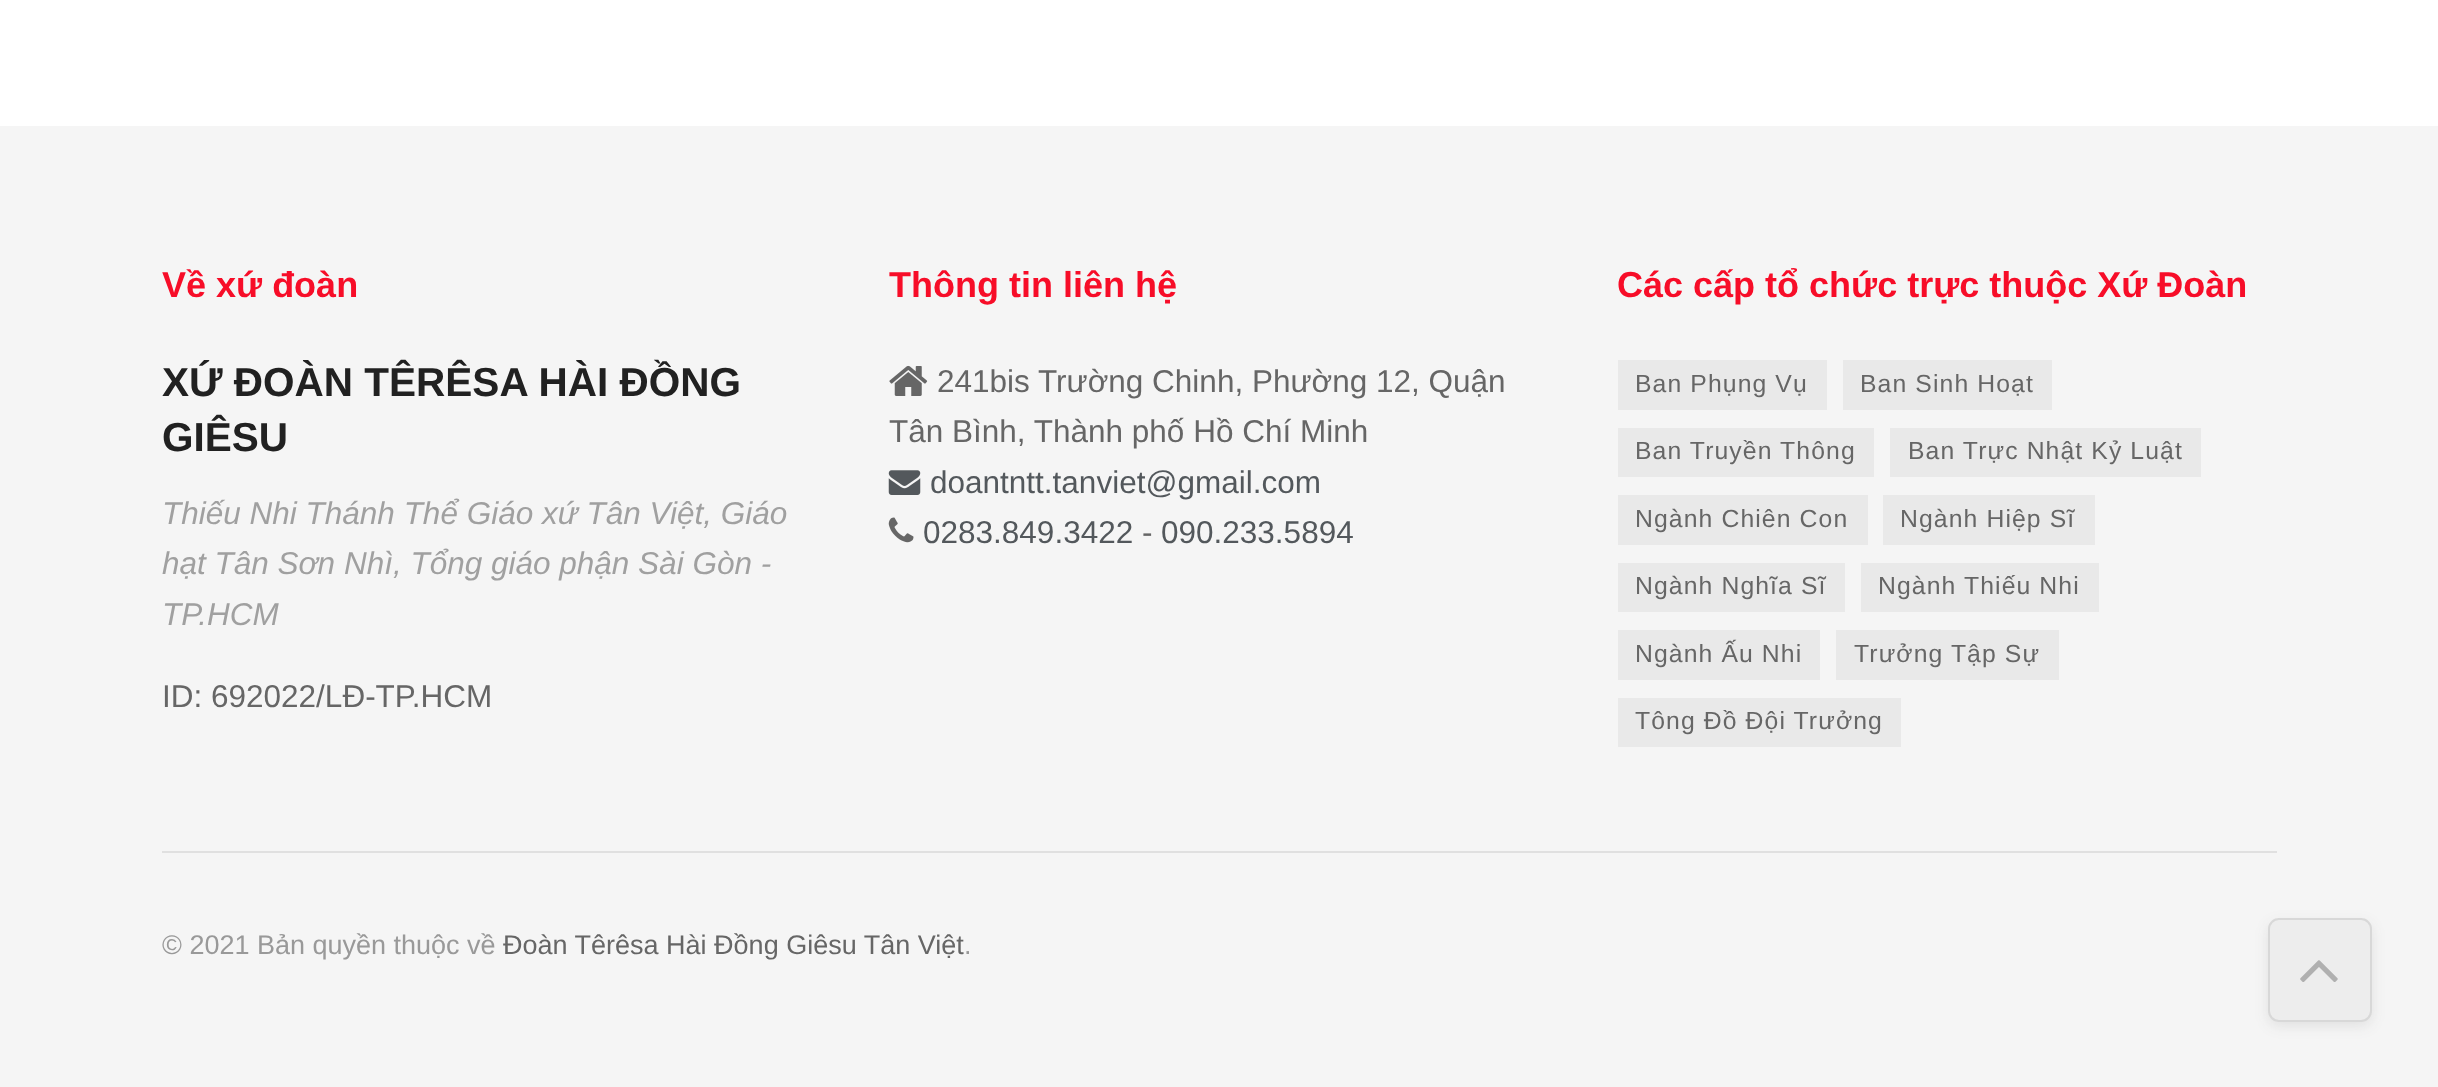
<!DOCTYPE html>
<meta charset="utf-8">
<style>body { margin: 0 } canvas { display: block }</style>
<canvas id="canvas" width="2438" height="1087"></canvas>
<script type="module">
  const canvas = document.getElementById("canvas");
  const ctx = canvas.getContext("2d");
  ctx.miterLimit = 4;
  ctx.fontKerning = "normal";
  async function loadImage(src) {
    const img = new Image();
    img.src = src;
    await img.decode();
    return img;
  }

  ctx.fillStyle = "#ffffff";
  ctx.fillRect(0, 0, 2438, 1087);
  ctx.fillStyle = "#f5f5f5";
  ctx.fillRect(0, 126, 2438, 961);
  ctx.font = "bold 36px Liberation Sans";
  ctx.fillStyle = "#f70d28";
  ctx.fillText("Về xứ đoàn", 162, 297);
  ctx.font = "bold 40.5px Liberation Sans";
  ctx.fillStyle = "#212121";
  ctx.fillText("XỨ ĐOÀN TÊRÊSA HÀI ĐỒNG", 162, 396);
  ctx.fillText("GIÊSU", 162, 451);
  ctx.font = "italic 31.5px Liberation Sans";
  ctx.fillStyle = "#a0a0a0";
  ctx.fillText("Thiếu Nhi Thánh Thể Giáo xứ Tân Việt, Giáo", 162, 524);
  ctx.fillText("hạt Tân Sơn Nhì, Tổng giáo phận Sài Gòn -", 162, 574);
  ctx.fillText("TP.HCM", 162, 625);
  ctx.font = "31.5px Liberation Sans";
  ctx.fillStyle = "#666666";
  ctx.fillText("ID: 692022/LĐ-TP.HCM", 162, 707);
  ctx.font = "bold 36px Liberation Sans";
  ctx.fillStyle = "#f70d28";
  ctx.fillText("Thông tin liên hệ", 889, 297);
  ctx.drawImage(await loadImage("img1.png"), 889, 365, 39, 31);
  ctx.font = "31.5px Liberation Sans";
  ctx.fillStyle = "#666666";
  ctx.fillText("241bis Trường Chinh, Phường 12, Quận", 937, 392);
  ctx.fillText("Tân Bình, Thành phố Hồ Chí Minh", 889, 442);
  ctx.drawImage(await loadImage("img2.png"), 888, 470, 33, 25);
  ctx.fillStyle = "#53585c";
  ctx.fillText("doantntt.tanviet@gmail.com", 930, 493);
  ctx.drawImage(await loadImage("img3.png"), 888, 517, 26, 26);
  ctx.fillText("0283.849.3422", 923, 543);
  ctx.fillStyle = "#666666";
  ctx.fillText("-", 1142, 543);
  ctx.fillStyle = "#53585c";
  ctx.fillText("090.233.5894", 1161, 543);
  ctx.font = "bold 36px Liberation Sans";
  ctx.fillStyle = "#f70d28";
  ctx.fillText("Các cấp tổ chức trực thuộc Xứ Đoàn", 1617, 297);
  ctx.fillStyle = "#e9e9e9";
  ctx.fillRect(1618, 360, 209, 50);
  ctx.letterSpacing = "1.1px";
  ctx.font = "24.75px Liberation Sans";
  ctx.fillStyle = "#666666";
  ctx.fillText("Ban Phụng Vụ", 1635, 392);
  ctx.fillStyle = "#e9e9e9";
  ctx.fillRect(1843, 360, 209, 50);
  ctx.fillStyle = "#666666";
  ctx.fillText("Ban Sinh Hoạt", 1860, 392);
  ctx.fillStyle = "#e9e9e9";
  ctx.fillRect(1618, 428, 256, 49);
  ctx.fillStyle = "#666666";
  ctx.fillText("Ban Truyền Thông", 1635, 459);
  ctx.fillStyle = "#e9e9e9";
  ctx.fillRect(1890, 428, 311, 49);
  ctx.fillStyle = "#666666";
  ctx.fillText("Ban Trực Nhật Kỷ Luật", 1908, 459);
  ctx.fillStyle = "#e9e9e9";
  ctx.fillRect(1618, 495, 250, 50);
  ctx.fillStyle = "#666666";
  ctx.fillText("Ngành Chiên Con", 1635, 527);
  ctx.fillStyle = "#e9e9e9";
  ctx.fillRect(1883, 495, 212, 50);
  ctx.fillStyle = "#666666";
  ctx.fillText("Ngành Hiệp Sĩ", 1900, 527);
  ctx.fillStyle = "#e9e9e9";
  ctx.fillRect(1618, 563, 227, 49);
  ctx.fillStyle = "#666666";
  ctx.fillText("Ngành Nghĩa Sĩ", 1635, 594);
  ctx.fillStyle = "#e9e9e9";
  ctx.fillRect(1861, 563, 238, 49);
  ctx.fillStyle = "#666666";
  ctx.fillText("Ngành Thiếu Nhi", 1878, 594);
  ctx.fillStyle = "#e9e9e9";
  ctx.fillRect(1618, 630, 202, 50);
  ctx.fillStyle = "#666666";
  ctx.fillText("Ngành Ấu Nhi", 1635, 662);
  ctx.fillStyle = "#e9e9e9";
  ctx.fillRect(1836, 630, 223, 50);
  ctx.fillStyle = "#666666";
  ctx.fillText("Trưởng Tập Sự", 1854, 662);
  ctx.fillStyle = "#e9e9e9";
  ctx.fillRect(1618, 698, 283, 49);
  ctx.fillStyle = "#666666";
  ctx.fillText("Tông Đồ Đội Trưởng", 1635, 729);
  ctx.fillStyle = "#e0e0e0";
  ctx.fillRect(162, 851, 2115, 2);
  ctx.letterSpacing = "0px";
  ctx.font = "27px Liberation Sans";
  ctx.fillStyle = "#999999";
  ctx.fillText("© 2021 Bản quyền thuộc về", 162, 954);
  ctx.fillStyle = "#666666";
  ctx.fillText("Đoàn Têrêsa Hài Đồng Giêsu Tân Việt", 503, 954);
  ctx.fillStyle = "#999999";
  ctx.fillText(".", 964, 954);
  ctx.save();
  ctx.beginPath();
  ctx.moveTo(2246, 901);
  ctx.lineTo(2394, 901);
  ctx.lineTo(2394, 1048);
  ctx.lineTo(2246, 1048);
  ctx.closePath();
  ctx.moveTo(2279, 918);
  ctx.lineTo(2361, 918);
  ctx.bezierCurveTo(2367, 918, 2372, 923, 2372, 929);
  ctx.lineTo(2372, 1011);
  ctx.bezierCurveTo(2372, 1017, 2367, 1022, 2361, 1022);
  ctx.lineTo(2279, 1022);
  ctx.bezierCurveTo(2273, 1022, 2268, 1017, 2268, 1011);
  ctx.lineTo(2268, 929);
  ctx.bezierCurveTo(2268, 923, 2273, 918, 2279, 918);
  ctx.closePath();
  ctx.clip("evenodd");
  ctx.fillStyle = "rgba(49, 49, 49, 0.1)";
  ctx.filter = "blur(7px)";
  ctx.beginPath();
  ctx.roundRect(2268, 923, 104, 103, 11);
  ctx.fill();
  ctx.filter = "none";
  ctx.restore();
  ctx.fillStyle = "rgba(194, 194, 194, 0.15)";
  ctx.beginPath();
  ctx.roundRect(2268, 918, 104, 104, 11);
  ctx.fill();
  ctx.beginPath();
  ctx.roundRect(2269, 919, 102, 102, 10);
  ctx.strokeStyle = "rgba(49, 49, 49, 0.11)";
  ctx.lineWidth = 2;
  ctx.stroke();
  ctx.drawImage(await loadImage("img4.png"), 2300, 960, 38, 22);
</script>
